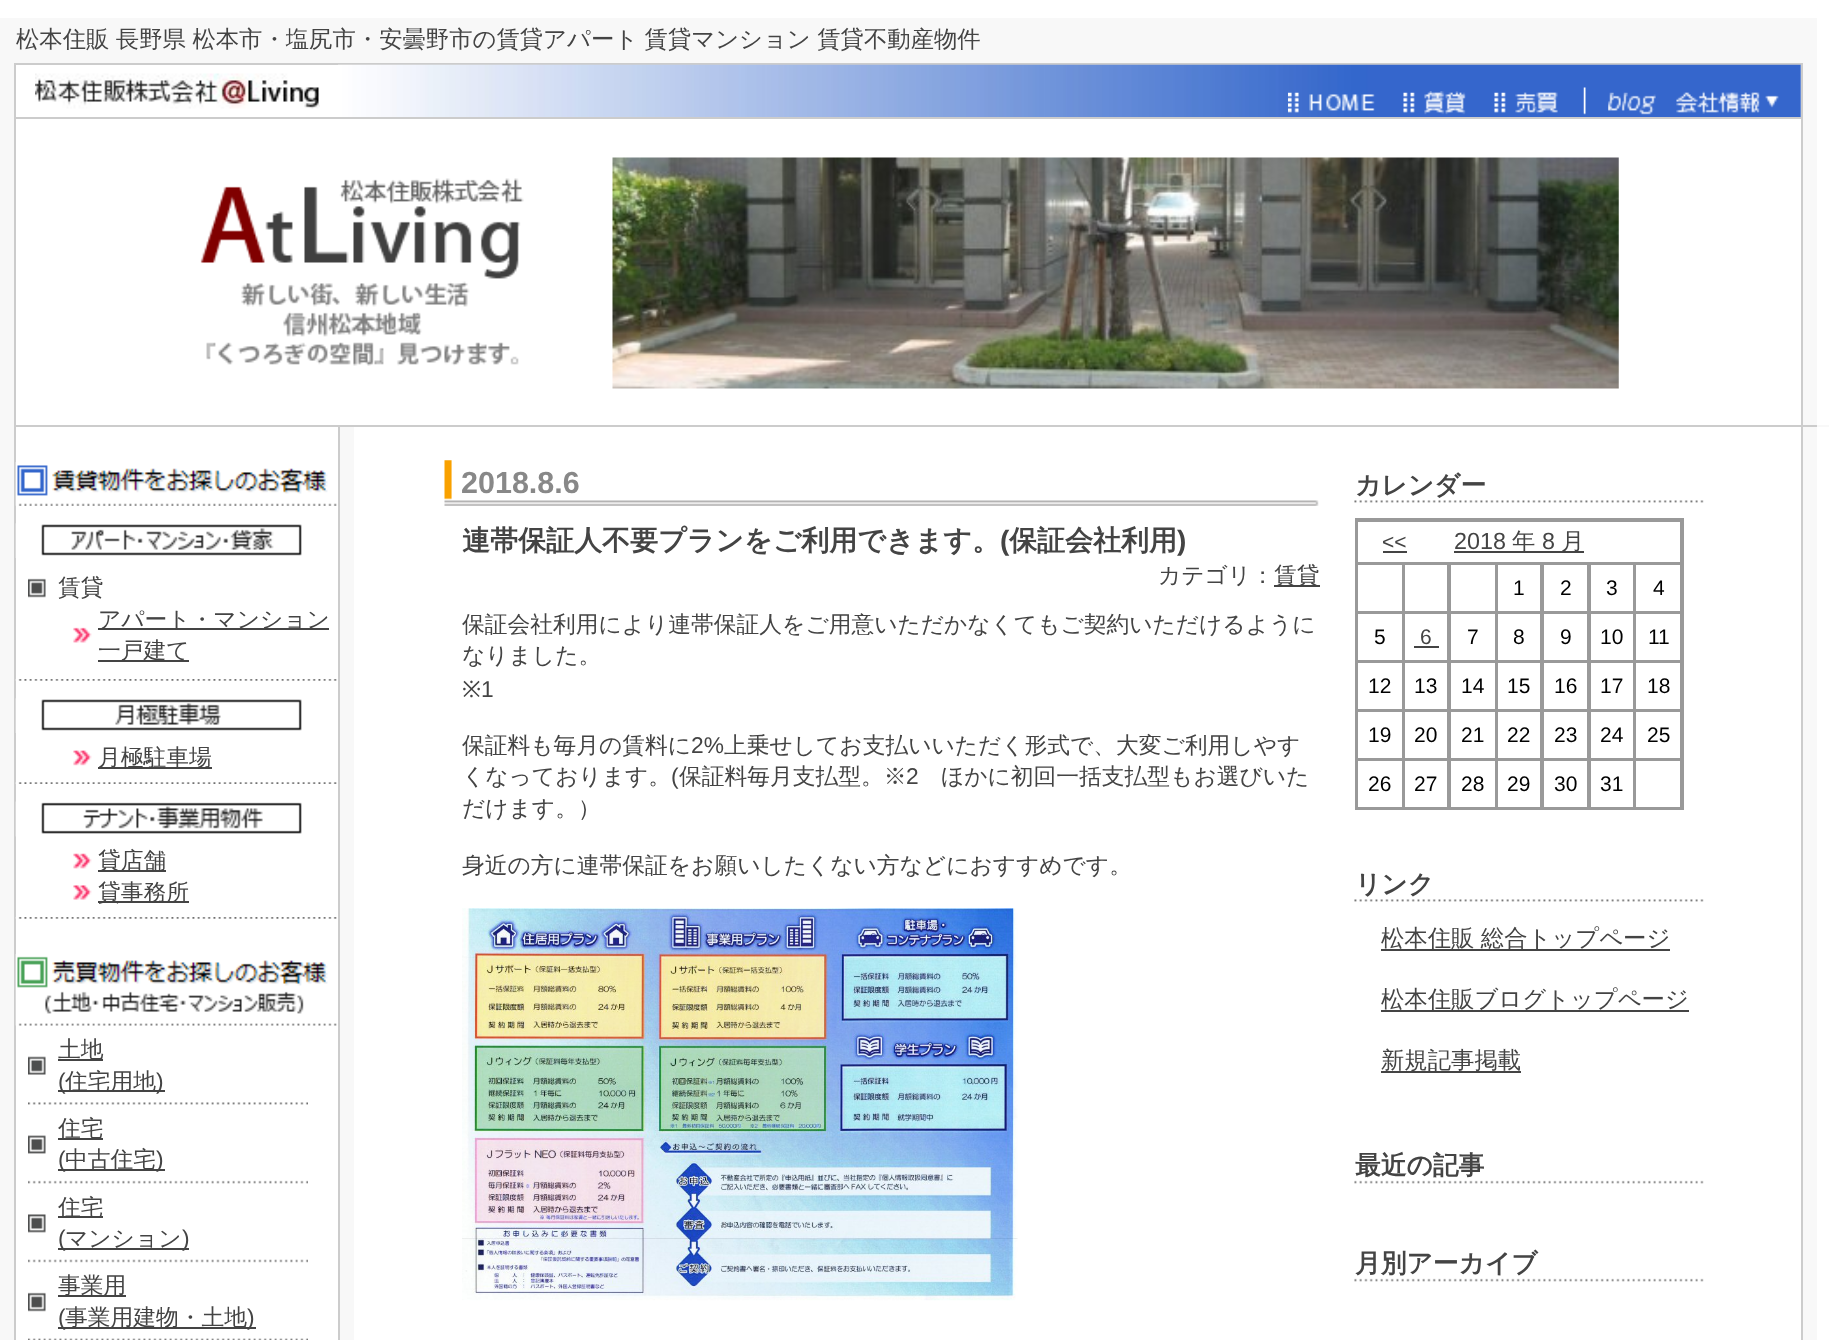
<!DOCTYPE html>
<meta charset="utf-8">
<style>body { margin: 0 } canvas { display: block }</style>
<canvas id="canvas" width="1829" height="1340"></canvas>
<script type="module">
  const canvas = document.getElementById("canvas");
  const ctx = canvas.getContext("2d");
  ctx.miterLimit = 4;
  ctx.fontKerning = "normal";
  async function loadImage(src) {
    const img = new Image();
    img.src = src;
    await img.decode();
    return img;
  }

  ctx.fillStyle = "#ffffff";
  ctx.fillRect(0, 0, 1829, 1340);
  ctx.fillStyle = "#f8f8f8";
  ctx.fillRect(0, 18, 1349, 45);
  ctx.fillRect(1349, 18, 468, 45);
  ctx.wordSpacing = "-0.5px";
  ctx.font = "500 23.35px WenQuanYi Zen Hei";
  ctx.fillStyle = "#444444";
  ctx.fillText("松本住販 長野県 松本市・塩尻市・安曇野市の賃貸アパート 賃貸マンション 賃貸不動産物件", 16, 47);
  ctx.fillStyle = "#f8f8f8";
  ctx.fillRect(0, 63, 14, 1277);
  ctx.fillStyle = "#cccccc";
  ctx.fillRect(14, 63, 1789, 2);
  ctx.fillStyle = "#f8f8f8";
  ctx.fillRect(1803, 63, 14, 362);
  ctx.fillStyle = "#cccccc";
  ctx.fillRect(14, 65, 2, 1275);
  ctx.drawImage(await loadImage("img1.png"), 35, 73, 285, 36);
  ctx.drawImage(await loadImage("img2.png"), 338, 64, 1463, 53);
  ctx.drawImage(await loadImage("img3.png"), 1288, 92, 11, 21);
  ctx.drawImage(await loadImage("img4.png"), 1309, 94, 66, 17);
  ctx.drawImage(await loadImage("img5.png"), 1403, 92, 12, 21);
  ctx.drawImage(await loadImage("img6.png"), 1424, 91, 42, 24);
  ctx.drawImage(await loadImage("img5.png"), 1494, 92, 12, 21);
  ctx.drawImage(await loadImage("img7.png"), 1515, 92, 43, 22);
  ctx.drawImage(await loadImage("img8.png"), 1583, 87, 3, 28);
  ctx.drawImage(await loadImage("img9.png"), 1608, 92, 48, 23);
  ctx.drawImage(await loadImage("img10.png"), 1676, 91, 103, 23);
  ctx.fillRect(1801, 65, 2, 52);
  ctx.fillRect(16, 117, 1787, 2);
  ctx.drawImage(await loadImage("img11.png"), 200, 178, 324, 188);
  ctx.drawImage(await loadImage("img12.png"), 612, 157, 1007, 232);
  ctx.fillRect(1801, 119, 2, 306);
  ctx.fillRect(16, 425, 1801, 2);
  ctx.fillStyle = "#f8f8f8";
  ctx.fillRect(1817, 425, 12, 2);
  ctx.drawImage(await loadImage("img13.png"), 15, 462, 322, 44);
  ctx.drawImage(await loadImage("img14.png"), 15, 523, 287, 35);
  ctx.drawImage(await loadImage("img15.png"), 28, 578, 18, 20);
  ctx.wordSpacing = "0px";
  ctx.font = "500 22.75px WenQuanYi Zen Hei";
  ctx.fillStyle = "#444444";
  ctx.fillText("賃貸", 58, 595);
  ctx.drawImage(await loadImage("img16.png"), 73, 627, 19, 16);
  ctx.fillRect(98, 628, 231, 2);
  ctx.fillText("アパート・マンション", 98, 627);
  ctx.fillRect(98, 660, 91, 2);
  ctx.fillText("一戸建て", 98, 658);
  ctx.drawImage(await loadImage("img17.png"), 15, 679, 322, 2);
  ctx.drawImage(await loadImage("img18.png"), 15, 698, 287, 35);
  ctx.drawImage(await loadImage("img19.png"), 73, 750, 19, 16);
  ctx.fillRect(98, 767, 114, 2);
  ctx.fillText("月極駐車場", 98, 765);
  ctx.drawImage(await loadImage("img20.png"), 15, 782, 322, 2);
  ctx.drawImage(await loadImage("img21.png"), 15, 801, 287, 36);
  ctx.drawImage(await loadImage("img22.png"), 73, 853, 19, 16);
  ctx.fillRect(98, 870, 68, 2);
  ctx.fillText("貸店舗", 98, 868);
  ctx.drawImage(await loadImage("img23.png"), 73, 885, 19, 15);
  ctx.fillRect(98, 901, 91, 2);
  ctx.fillText("貸事務所", 98, 900);
  ctx.drawImage(await loadImage("img17.png"), 15, 917, 322, 2);
  ctx.drawImage(await loadImage("img24.png"), 15, 954, 322, 72);
  ctx.drawImage(await loadImage("img25.png"), 28, 1056, 18, 19);
  ctx.fillRect(58, 1059, 45, 2);
  ctx.fillText("土地", 58, 1057);
  ctx.fillRect(58, 1090, 107, 2);
  ctx.font = "22.75px Liberation Sans";
  ctx.fillText("(", 58, 1089);
  ctx.font = "500 22.75px WenQuanYi Zen Hei";
  ctx.fillText("住宅用地", 65, 1089);
  ctx.font = "22.75px Liberation Sans";
  ctx.fillText(")", 156, 1089);
  ctx.drawImage(await loadImage("img26.png"), 28, 1102, 280, 3);
  ctx.drawImage(await loadImage("img27.png"), 28, 1135, 18, 19);
  ctx.fillRect(58, 1138, 45, 2);
  ctx.font = "500 22.75px WenQuanYi Zen Hei";
  ctx.fillText("住宅", 58, 1136);
  ctx.fillRect(58, 1169, 107, 2);
  ctx.font = "22.75px Liberation Sans";
  ctx.fillText("(", 58, 1167);
  ctx.font = "500 22.75px WenQuanYi Zen Hei";
  ctx.fillText("中古住宅", 65, 1167);
  ctx.font = "22.75px Liberation Sans";
  ctx.fillText(")", 156, 1167);
  ctx.drawImage(await loadImage("img28.png"), 28, 1180, 280, 4);
  ctx.drawImage(await loadImage("img29.png"), 28, 1214, 18, 19);
  ctx.fillRect(58, 1216, 45, 2);
  ctx.font = "500 22.75px WenQuanYi Zen Hei";
  ctx.fillText("住宅", 58, 1215);
  ctx.fillRect(58, 1248, 131, 2);
  ctx.font = "22.75px Liberation Sans";
  ctx.fillText("(", 58, 1246);
  ctx.font = "500 22.75px WenQuanYi Zen Hei";
  ctx.fillText("マンション", 65, 1246);
  ctx.font = "22.75px Liberation Sans";
  ctx.fillText(")", 182, 1246);
  ctx.drawImage(await loadImage("img30.png"), 28, 1259, 280, 4);
  ctx.drawImage(await loadImage("img15.png"), 28, 1292, 18, 20);
  ctx.fillRect(58, 1295, 68, 2);
  ctx.font = "500 22.75px WenQuanYi Zen Hei";
  ctx.fillText("事業用", 58, 1293);
  ctx.fillRect(58, 1327, 198, 2);
  ctx.font = "22.75px Liberation Sans";
  ctx.fillText("(", 58, 1325);
  ctx.font = "500 22.75px WenQuanYi Zen Hei";
  ctx.fillText("事業用建物・土地", 65, 1325);
  ctx.font = "22.75px Liberation Sans";
  ctx.fillText(")", 247, 1325);
  ctx.drawImage(await loadImage("img31.png"), 28, 1338, 280, 2);
  ctx.fillStyle = "#cccccc";
  ctx.fillRect(338, 427, 2, 913);
  ctx.fillStyle = "#f8f8f8";
  ctx.fillRect(340, 427, 14, 913);
  ctx.drawImage(await loadImage("img32.png"), 444, 460, 875, 46);
  ctx.font = "bold 30.5px Liberation Sans";
  ctx.fillStyle = "#888888";
  ctx.fillText("2018.8.6", 461, 493);
  ctx.font = "bold 28px WenQuanYi Zen Hei";
  ctx.fillStyle = "#444444";
  ctx.fillText("連帯保証人不要プランをご利用できます。", 462, 550);
  ctx.font = "bold 28px Liberation Sans";
  ctx.fillText("(", 1000, 550);
  ctx.font = "bold 28px WenQuanYi Zen Hei";
  ctx.fillText("保証会社利用", 1009, 550);
  ctx.font = "bold 28px Liberation Sans";
  ctx.fillText(")", 1177, 550);
  ctx.font = "500 22.75px WenQuanYi Zen Hei";
  ctx.fillText("カテゴリ：", 1158, 583);
  ctx.fillRect(1274, 585, 46, 2);
  ctx.fillText("賃貸", 1274, 583);
  ctx.fillText("保証会社利用により連帯保証人をご用意いただかなくてもご契約いただけるように", 462, 632);
  ctx.fillText("なりました。", 462, 663);
  ctx.font = "22.75px Noto Sans";
  ctx.fillText("※", 462, 697);
  ctx.font = "22.75px Liberation Sans";
  ctx.fillText("1", 481, 697);
  ctx.font = "500 22.75px WenQuanYi Zen Hei";
  ctx.fillText("保証料も毎月の賃料に", 462, 753);
  ctx.font = "22.75px Liberation Sans";
  ctx.fillText("2%", 691, 753);
  ctx.font = "500 22.75px WenQuanYi Zen Hei";
  ctx.fillText("上乗せしてお支払いいただく形式で、大変ご利用しやす", 724, 753);
  ctx.fillText("くなっております。", 462, 784);
  ctx.font = "22.75px Liberation Sans";
  ctx.fillText("(", 671, 784);
  ctx.font = "500 22.75px WenQuanYi Zen Hei";
  ctx.fillText("保証料毎月支払型。※", 679, 784);
  ctx.font = "22.75px Liberation Sans";
  ctx.fillText("2", 906, 784);
  ctx.font = "500 22.75px WenQuanYi Zen Hei";
  ctx.fillText("ほかに初回一括支払型もお選びいた", 941, 784);
  ctx.fillText("だけます。）", 462, 816);
  ctx.fillText("身近の方に連帯保証をお願いしたくない方などにおすすめです。", 462, 873);
  ctx.drawImage(await loadImage("img33.png"), 462, 908, 556, 393);
  ctx.drawImage(await loadImage("img34.png"), 1354, 500, 350, 3);
  ctx.font = "bold 25.75px WenQuanYi Zen Hei";
  ctx.fillText("カレンダー", 1355, 494);
  ctx.fillStyle = "#999999";
  ctx.fillRect(1355, 518, 329, 292);
  ctx.fillStyle = "#ffffff";
  ctx.fillRect(1358, 522, 322, 40);
  ctx.font = "21px Liberation Sans";
  ctx.fillStyle = "#444444";
  ctx.fillText("<<", 1382, 549);
  ctx.fillRect(1383, 551, 24, 2);
  ctx.font = "23.35px Liberation Sans";
  ctx.fillText("2018", 1454, 549);
  ctx.fillRect(1454, 551, 130, 2);
  ctx.font = "500 23.35px WenQuanYi Zen Hei";
  ctx.fillText("年", 1512, 549);
  ctx.font = "23.35px Liberation Sans";
  ctx.fillText("8", 1542, 549);
  ctx.font = "500 23.35px WenQuanYi Zen Hei";
  ctx.fillText("月", 1561, 549);
  ctx.fillStyle = "#ffffff";
  ctx.fillRect(1358, 565, 44, 46);
  ctx.fillRect(1405, 565, 42, 46);
  ctx.fillRect(1451, 565, 44, 46);
  ctx.fillRect(1498, 565, 42, 46);
  ctx.font = "21px Liberation Sans";
  ctx.fillStyle = "#000000";
  ctx.fillText("1", 1513, 595);
  ctx.fillStyle = "#ffffff";
  ctx.fillRect(1544, 565, 43, 46);
  ctx.fillStyle = "#000000";
  ctx.fillText("2", 1560, 595);
  ctx.fillStyle = "#ffffff";
  ctx.fillRect(1591, 565, 42, 46);
  ctx.fillStyle = "#000000";
  ctx.fillText("3", 1606, 595);
  ctx.fillStyle = "#ffffff";
  ctx.fillRect(1636, 565, 44, 46);
  ctx.fillStyle = "#000000";
  ctx.fillText("4", 1653, 595);
  ctx.fillStyle = "#ffffff";
  ctx.fillRect(1358, 614, 44, 46);
  ctx.fillStyle = "#000000";
  ctx.fillText("5", 1374, 644);
  ctx.fillStyle = "#ffffff";
  ctx.fillRect(1405, 614, 42, 46);
  ctx.fillStyle = "#444444";
  ctx.fillText("6", 1420, 644);
  ctx.fillRect(1414, 646, 25, 2);
  ctx.fillStyle = "#ffffff";
  ctx.fillRect(1451, 614, 44, 46);
  ctx.fillStyle = "#000000";
  ctx.fillText("7", 1467, 644);
  ctx.fillStyle = "#ffffff";
  ctx.fillRect(1498, 614, 42, 46);
  ctx.fillStyle = "#000000";
  ctx.fillText("8", 1513, 644);
  ctx.fillStyle = "#ffffff";
  ctx.fillRect(1544, 614, 43, 46);
  ctx.fillStyle = "#000000";
  ctx.fillText("9", 1560, 644);
  ctx.fillStyle = "#ffffff";
  ctx.fillRect(1591, 614, 42, 46);
  ctx.fillStyle = "#000000";
  ctx.fillText("10", 1600, 644);
  ctx.fillStyle = "#ffffff";
  ctx.fillRect(1636, 614, 44, 46);
  ctx.fillStyle = "#000000";
  ctx.fillText("11", 1648, 644);
  ctx.fillStyle = "#ffffff";
  ctx.fillRect(1358, 663, 44, 46);
  ctx.fillStyle = "#000000";
  ctx.fillText("12", 1368, 693);
  ctx.fillStyle = "#ffffff";
  ctx.fillRect(1405, 663, 42, 46);
  ctx.fillStyle = "#000000";
  ctx.fillText("13", 1414, 693);
  ctx.fillStyle = "#ffffff";
  ctx.fillRect(1451, 663, 44, 46);
  ctx.fillStyle = "#000000";
  ctx.fillText("14", 1461, 693);
  ctx.fillStyle = "#ffffff";
  ctx.fillRect(1498, 663, 42, 46);
  ctx.fillStyle = "#000000";
  ctx.fillText("15", 1507, 693);
  ctx.fillStyle = "#ffffff";
  ctx.fillRect(1544, 663, 43, 46);
  ctx.fillStyle = "#000000";
  ctx.fillText("16", 1554, 693);
  ctx.fillStyle = "#ffffff";
  ctx.fillRect(1591, 663, 42, 46);
  ctx.fillStyle = "#000000";
  ctx.fillText("17", 1600, 693);
  ctx.fillStyle = "#ffffff";
  ctx.fillRect(1636, 663, 44, 46);
  ctx.fillStyle = "#000000";
  ctx.fillText("18", 1647, 693);
  ctx.fillStyle = "#ffffff";
  ctx.fillRect(1358, 712, 44, 46);
  ctx.fillStyle = "#000000";
  ctx.fillText("19", 1368, 742);
  ctx.fillStyle = "#ffffff";
  ctx.fillRect(1405, 712, 42, 46);
  ctx.fillStyle = "#000000";
  ctx.fillText("20", 1414, 742);
  ctx.fillStyle = "#ffffff";
  ctx.fillRect(1451, 712, 44, 46);
  ctx.fillStyle = "#000000";
  ctx.fillText("21", 1461, 742);
  ctx.fillStyle = "#ffffff";
  ctx.fillRect(1498, 712, 42, 46);
  ctx.fillStyle = "#000000";
  ctx.fillText("22", 1507, 742);
  ctx.fillStyle = "#ffffff";
  ctx.fillRect(1544, 712, 43, 46);
  ctx.fillStyle = "#000000";
  ctx.fillText("23", 1554, 742);
  ctx.fillStyle = "#ffffff";
  ctx.fillRect(1591, 712, 42, 46);
  ctx.fillStyle = "#000000";
  ctx.fillText("24", 1600, 742);
  ctx.fillStyle = "#ffffff";
  ctx.fillRect(1636, 712, 44, 46);
  ctx.fillStyle = "#000000";
  ctx.fillText("25", 1647, 742);
  ctx.fillStyle = "#ffffff";
  ctx.fillRect(1358, 761, 44, 46);
  ctx.fillStyle = "#000000";
  ctx.fillText("26", 1368, 791);
  ctx.fillStyle = "#ffffff";
  ctx.fillRect(1405, 761, 42, 46);
  ctx.fillStyle = "#000000";
  ctx.fillText("27", 1414, 791);
  ctx.fillStyle = "#ffffff";
  ctx.fillRect(1451, 761, 44, 46);
  ctx.fillStyle = "#000000";
  ctx.fillText("28", 1461, 791);
  ctx.fillStyle = "#ffffff";
  ctx.fillRect(1498, 761, 42, 46);
  ctx.fillStyle = "#000000";
  ctx.fillText("29", 1507, 791);
  ctx.fillStyle = "#ffffff";
  ctx.fillRect(1544, 761, 43, 46);
  ctx.fillStyle = "#000000";
  ctx.fillText("30", 1554, 791);
  ctx.fillStyle = "#ffffff";
  ctx.fillRect(1591, 761, 42, 46);
  ctx.fillStyle = "#000000";
  ctx.fillText("31", 1600, 791);
  ctx.fillStyle = "#ffffff";
  ctx.fillRect(1636, 761, 44, 46);
  ctx.drawImage(await loadImage("img34.png"), 1354, 899, 350, 3);
  ctx.font = "bold 25.75px WenQuanYi Zen Hei";
  ctx.fillStyle = "#444444";
  ctx.fillText("リンク", 1355, 893);
  ctx.fillRect(1381, 949, 289, 2);
  ctx.wordSpacing = "-0.5px";
  ctx.font = "500 23.35px WenQuanYi Zen Hei";
  ctx.fillText("松本住販 総合トップページ", 1381, 946);
  ctx.fillRect(1381, 1010, 308, 2);
  ctx.wordSpacing = "0px";
  ctx.fillText("松本住販ブログトップページ", 1381, 1007);
  ctx.fillRect(1381, 1071, 140, 2);
  ctx.fillText("新規記事掲載", 1381, 1068);
  ctx.drawImage(await loadImage("img35.png"), 1354, 1180, 350, 4);
  ctx.font = "bold 25.75px WenQuanYi Zen Hei";
  ctx.fillText("最近の記事", 1355, 1174);
  ctx.drawImage(await loadImage("img35.png"), 1354, 1278, 350, 4);
  ctx.fillText("月別アーカイブ", 1355, 1272);
  ctx.fillStyle = "#cccccc";
  ctx.fillRect(1801, 427, 2, 913);
  ctx.fillStyle = "#f8f8f8";
  ctx.fillRect(1803, 427, 14, 913);
</script>
